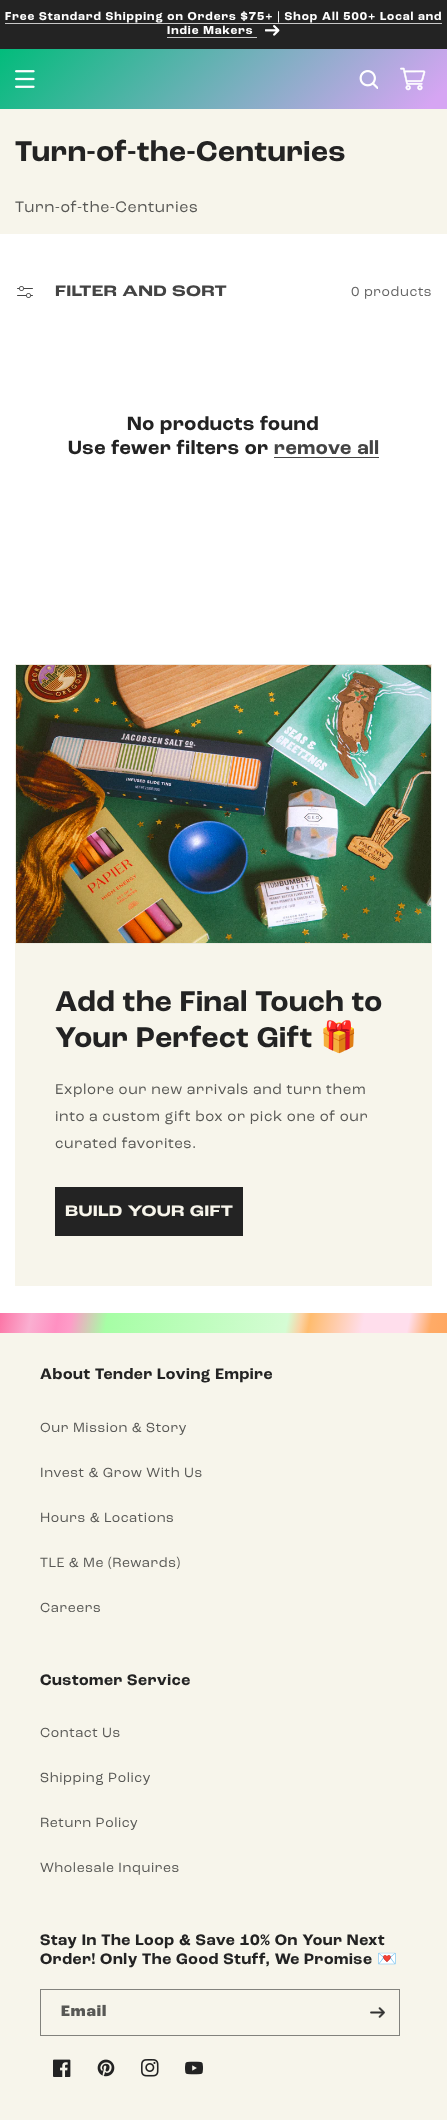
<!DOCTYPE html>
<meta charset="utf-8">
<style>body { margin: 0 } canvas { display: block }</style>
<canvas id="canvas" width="447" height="2120"></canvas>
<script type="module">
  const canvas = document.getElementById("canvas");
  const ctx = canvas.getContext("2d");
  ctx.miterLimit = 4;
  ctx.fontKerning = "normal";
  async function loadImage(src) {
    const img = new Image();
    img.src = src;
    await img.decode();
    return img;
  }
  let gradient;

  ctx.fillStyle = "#ffffff";
  ctx.fillRect(0, 0, 447, 2120);
  ctx.fillStyle = "#232323";
  ctx.fillRect(0, 0, 447, 49);
  ctx.letterSpacing = "1px";
  ctx.font = "bold 12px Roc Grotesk";
  ctx.fillStyle = "#ffffff";
  ctx.fillText("Free Standard Shipping on Orders $75+ | Shop All 500+ Local and", 5, 20);
  ctx.fillStyle = "#c8c8c8";
  ctx.fillRect(5, 23, 437, 1);
  ctx.fillStyle = "#ffffff";
  ctx.fillText("Indie Makers", 167, 34);
  ctx.fillStyle = "#c8c8c8";
  ctx.fillRect(167, 37, 90, 1);
  ctx.drawImage(await loadImage("img1.png"), 265, 25, 15, 11);
  gradient = ctx.createLinearGradient(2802, 1303, 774, -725);
  gradient.addColorStop(0, "#118dd8");
  gradient.addColorStop(0.12, "#118dd8");
  gradient.addColorStop(0.25, "#ff92d0");
  gradient.addColorStop(0.38, "#ff92d0");
  gradient.addColorStop(0.5, "#ffa624");
  gradient.addColorStop(0.62, "#ff674c");
  gradient.addColorStop(0.75, "#d6a5f3");
  gradient.addColorStop(0.88, "#d6a5f3");
  gradient.addColorStop(1, "#02bc7b");
  ctx.fillStyle = gradient;
  ctx.fillRect(0, 49, 447, 60);
  ctx.drawImage(await loadImage("img2.png"), 15, 70, 20, 18);
  ctx.drawImage(await loadImage("img3.png"), 359, 70, 19, 19);
  ctx.drawImage(await loadImage("img4.png"), 400, 67, 26, 24);
  ctx.fillStyle = "#f7f5eb";
  ctx.fillRect(0, 109, 447, 125);
  ctx.letterSpacing = "0.6px";
  ctx.font = "bold 30px Roc Grotesk";
  ctx.fillStyle = "#232323";
  ctx.fillText("Turn-of-the-Centuries", 15, 161);
  ctx.font = "16px Roc Grotesk";
  ctx.fillStyle = "#585855";
  ctx.fillText("Turn-of-the-Centuries", 15, 212);
  ctx.drawImage(await loadImage("img5.png"), 17, 286, 16, 12);
  ctx.letterSpacing = "0.25px";
  ctx.font = "bold 16px 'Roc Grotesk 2'";
  ctx.fillStyle = "#444444";
  ctx.fillText("FILTER AND SORT", 55, 296);
  ctx.letterSpacing = "0.6px";
  ctx.font = "14px Roc Grotesk";
  ctx.fillStyle = "#656565";
  ctx.fillText("0 products", 351, 296);
  ctx.font = "bold 20px Roc Grotesk";
  ctx.fillStyle = "#232323";
  ctx.fillText("No products found", 127, 430);
  ctx.fillText("Use fewer filters or", 68, 454);
  ctx.fillStyle = "#444444";
  ctx.fillText("remove all", 274, 454);
  ctx.fillRect(274, 457, 105, 1);
  ctx.strokeStyle = "#ecebe1";
  ctx.strokeRect(15.5, 664.5, 416, 279);
  ctx.drawImage(await loadImage("img6.png"), 16, 665, 415, 278);
  ctx.fillStyle = "#f7f5eb";
  ctx.fillRect(15, 944, 417, 342);
  ctx.font = "bold 30px Roc Grotesk";
  ctx.fillStyle = "#232323";
  ctx.fillText("Add the Final Touch to", 55, 1011);
  ctx.fillText("Your Perfect Gift", 55, 1047);
  ctx.font = "bold 30px Noto Color Emoji";
  ctx.fillText("🎁", 320, 1047);
  ctx.font = "15px Roc Grotesk";
  ctx.fillStyle = "#585855";
  ctx.fillText("Explore our new arrivals and turn them", 55, 1094);
  ctx.fillText("into a custom gift box or pick one of our", 55, 1121);
  ctx.fillText("curated favorites.", 55, 1148);
  ctx.fillStyle = "#232323";
  ctx.fillRect(55, 1187, 188, 49);
  ctx.letterSpacing = "0.25px";
  ctx.font = "bold 16px 'Roc Grotesk 2'";
  ctx.fillStyle = "#f7f5eb";
  ctx.fillText("BUILD YOUR GIFT", 65, 1216);
  gradient = ctx.createLinearGradient(6.3, 1281, 441, 1365);
  gradient.addColorStop(0, "#fc75a6");
  gradient.addColorStop(0.07, "#faafd1");
  gradient.addColorStop(0.13, "#ff90c2");
  gradient.addColorStop(0.16, "#fe9cc8");
  gradient.addColorStop(0.24, "#a6fea5");
  gradient.addColorStop(0.64, "#d5fcd4");
  gradient.addColorStop(0.67, "#fad3a5");
  gradient.addColorStop(0.69, "#ffbc6e");
  gradient.addColorStop(0.81, "#ffdeec");
  gradient.addColorStop(0.91, "#ffdeec");
  gradient.addColorStop(0.96, "#ffab67");
  gradient.addColorStop(1, "#ffa760");
  ctx.fillStyle = gradient;
  ctx.fillRect(0, 1313, 447, 20);
  ctx.fillStyle = "#f7f5eb";
  ctx.fillRect(0, 1333, 447, 787);
  ctx.letterSpacing = "0.6px";
  ctx.font = "bold 16px Roc Grotesk";
  ctx.fillStyle = "#232323";
  ctx.fillText("About Tender Loving Empire", 40, 1379);
  ctx.font = "14px Roc Grotesk";
  ctx.fillStyle = "#585855";
  ctx.fillText("Our Mission & Story", 40, 1432);
  ctx.fillText("Invest & Grow With Us", 40, 1477);
  ctx.fillText("Hours & Locations", 40, 1522);
  ctx.fillText("TLE & Me (Rewards)", 40, 1567);
  ctx.fillText("Careers", 40, 1612);
  ctx.font = "bold 16px Roc Grotesk";
  ctx.fillStyle = "#232323";
  ctx.fillText("Customer Service", 40, 1685);
  ctx.font = "14px Roc Grotesk";
  ctx.fillStyle = "#585855";
  ctx.fillText("Contact Us", 40, 1737);
  ctx.fillText("Shipping Policy", 40, 1782);
  ctx.fillText("Return Policy", 40, 1827);
  ctx.fillText("Wholesale Inquires", 40, 1872);
  ctx.font = "bold 16px Roc Grotesk";
  ctx.fillStyle = "#232323";
  ctx.fillText("Stay In The Loop & Save 10% On Your Next", 40, 1945);
  ctx.fillText("Order! Only The Good Stuff, We Promise", 40, 1964);
  ctx.font = "bold 16px Noto Color Emoji";
  ctx.fillText("💌", 377, 1964);
  ctx.strokeStyle = "#82827d";
  ctx.strokeRect(40.5, 1989.5, 359, 46);
  ctx.letterSpacing = "1px";
  ctx.font = "800 16px Roc Grotesk";
  ctx.fillStyle = "#585855";
  ctx.fillText("Email", 61, 2016);
  ctx.drawImage(await loadImage("img7.png"), 370, 2007, 15, 11);
  ctx.drawImage(await loadImage("img8.png"), 53, 2059, 18, 18);
  ctx.drawImage(await loadImage("img9.png"), 97, 2059, 18, 18);
  ctx.drawImage(await loadImage("img10.png"), 141, 2059, 18, 18);
  ctx.drawImage(await loadImage("img11.png"), 185, 2061, 18, 14);
</script>
